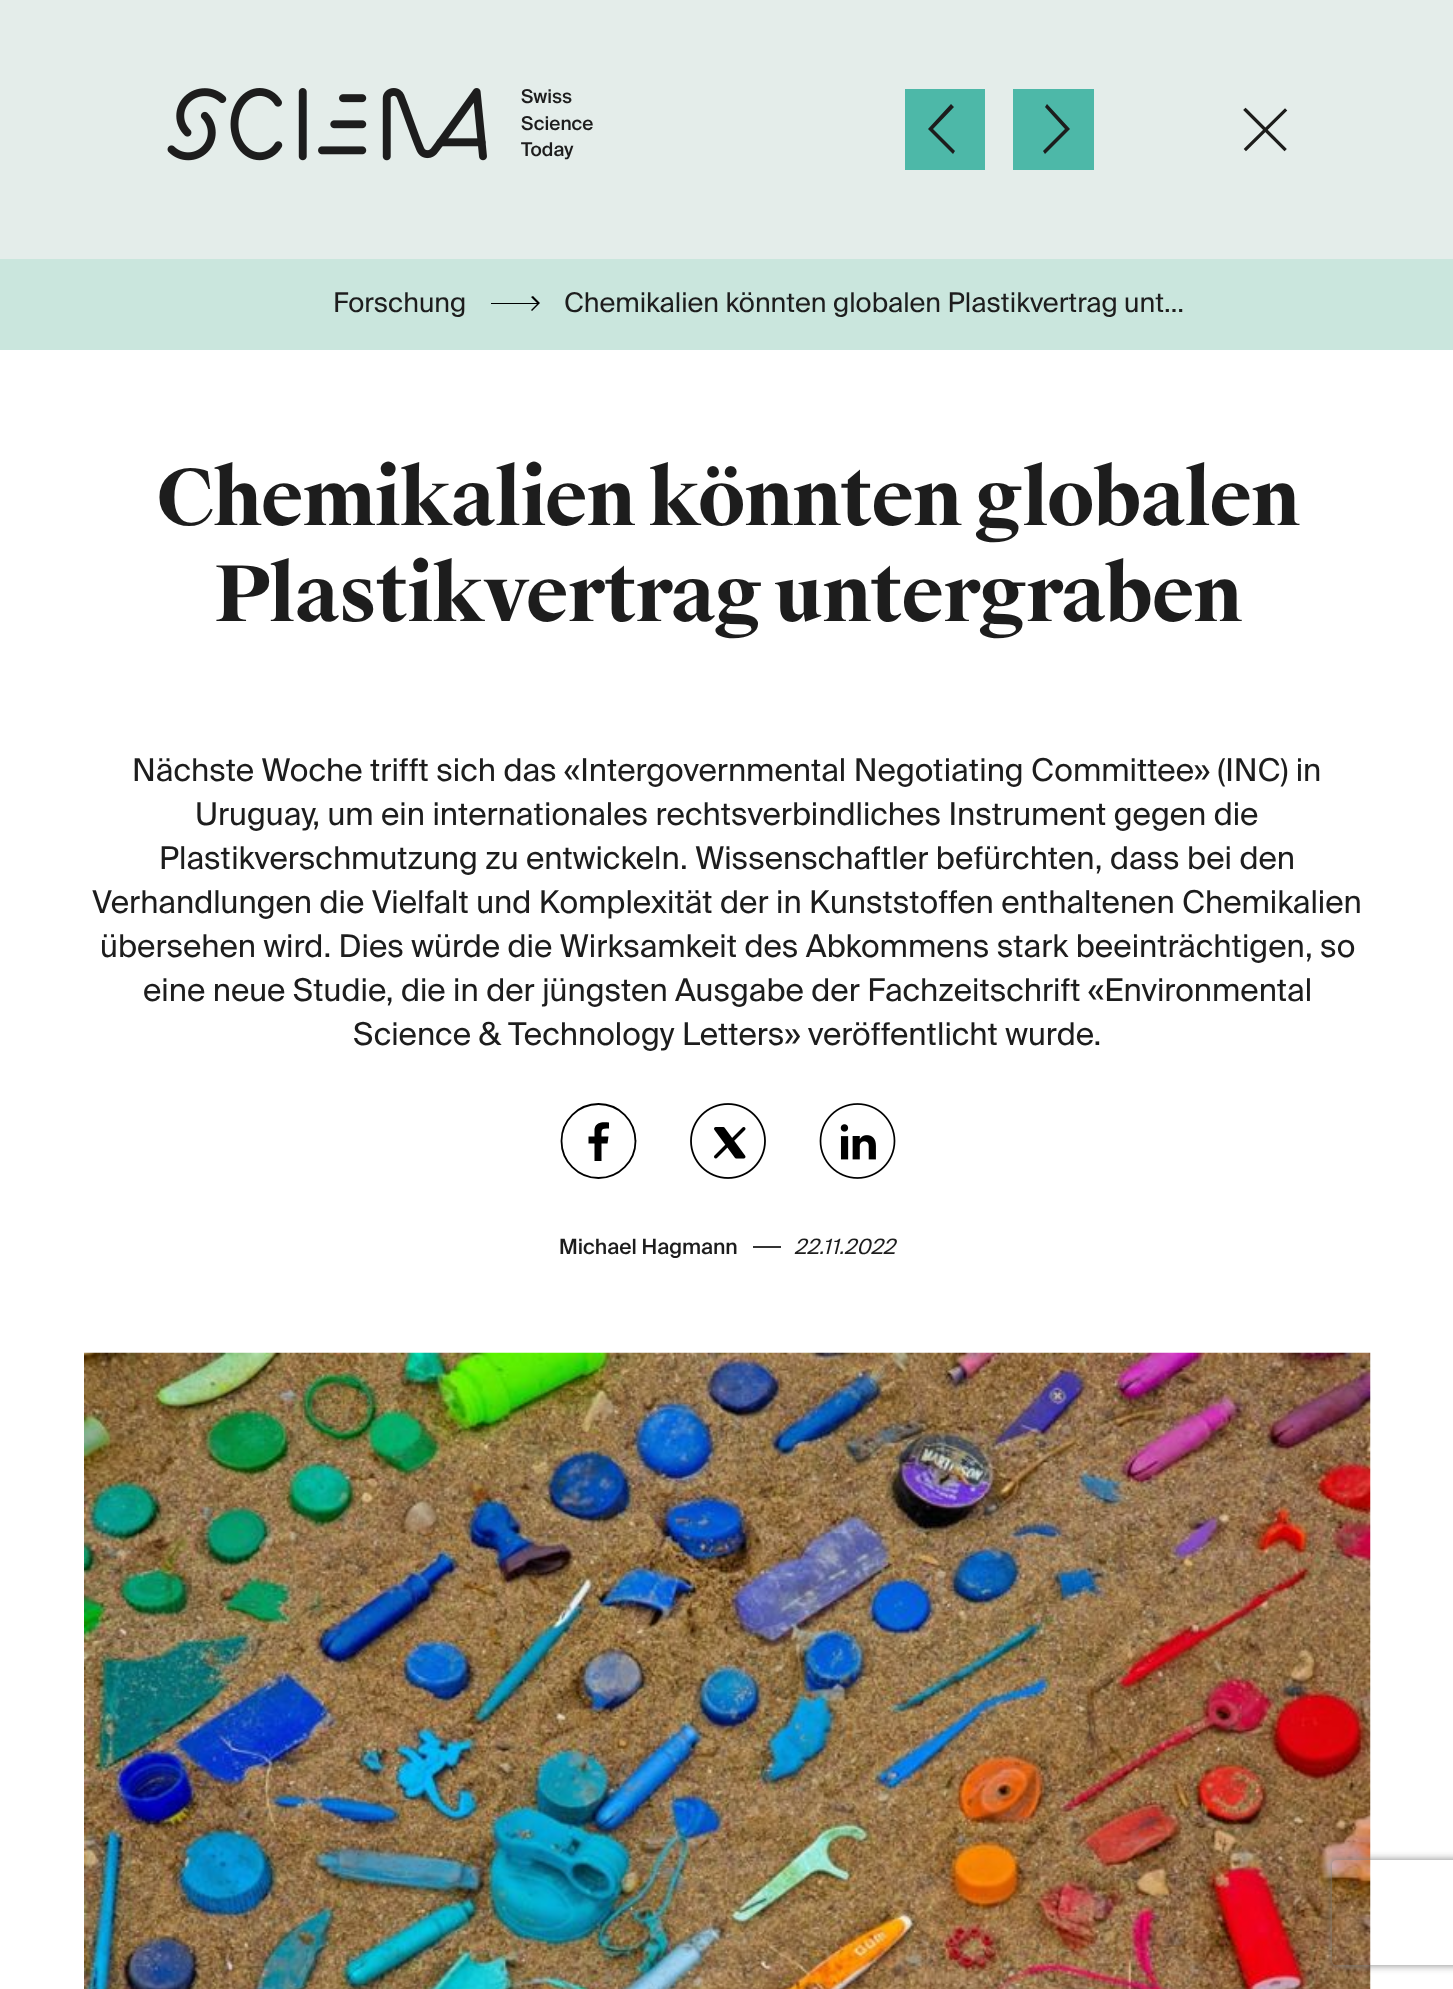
<!DOCTYPE html>
<meta charset="utf-8">
<style>body { margin: 0 } canvas { display: block }</style>
<canvas id="canvas" width="1453" height="1989"></canvas>
<script type="module">
  const canvas = document.getElementById("canvas");
  const ctx = canvas.getContext("2d");
  ctx.miterLimit = 4;
  ctx.fontKerning = "normal";
  async function loadImage(src) {
    const img = new Image();
    img.src = src;
    await img.decode();
    return img;
  }

  ctx.fillStyle = "#ffffff";
  ctx.fillRect(0, 0, 1453, 1989);
  ctx.fillStyle = "#e4edea";
  ctx.fillRect(0, 0, 1453, 259);
  ctx.drawImage(await loadImage("img1.png"), 167, 88, 320, 73);
  ctx.font = "500 19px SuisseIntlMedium";
  ctx.fillStyle = "#1d1d1d";
  ctx.fillText("Swiss", 521, 103);
  ctx.fillText("Science", 521, 130);
  ctx.fillText("Today", 521, 156);
  ctx.fillStyle = "#4db8a8";
  ctx.fillRect(905, 89, 80, 81);
  ctx.fillStyle = "#1d1d1d";
  ctx.beginPath();
  ctx.moveTo(933, 129);
  ctx.lineTo(954, 107);
  ctx.lineTo(951, 104);
  ctx.lineTo(928, 129);
  ctx.lineTo(953, 154);
  ctx.lineTo(955, 151);
  ctx.closePath();
  ctx.fill();
  ctx.fillStyle = "#4db8a8";
  ctx.fillRect(1013, 89, 81, 81);
  ctx.fillStyle = "#1d1d1d";
  ctx.beginPath();
  ctx.moveTo(1065, 129);
  ctx.lineTo(1045, 107);
  ctx.lineTo(1047, 104);
  ctx.lineTo(1070, 129);
  ctx.lineTo(1045, 154);
  ctx.lineTo(1043, 151);
  ctx.closePath();
  ctx.fill();
  ctx.beginPath();
  ctx.moveTo(1246, 149);
  ctx.lineTo(1285, 110.5);
  ctx.strokeStyle = "#1d1d1b";
  ctx.lineWidth = 3.2;
  ctx.lineCap = "square";
  ctx.stroke();
  ctx.beginPath();
  ctx.moveTo(1245.5, 110);
  ctx.lineTo(1284.5, 149);
  ctx.lineWidth = 3.3;
  ctx.stroke();
  ctx.fillStyle = "#cae6dd";
  ctx.fillRect(0, 259, 1453, 91);
  ctx.font = "27.2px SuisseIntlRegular";
  ctx.fillStyle = "#1d1d1d";
  ctx.fillText("Forschung", 333, 312);
  ctx.fillStyle = "#000000";
  ctx.beginPath();
  ctx.moveTo(539, 304);
  ctx.lineTo(532, 311);
  ctx.lineTo(531, 310);
  ctx.lineTo(537, 304);
  ctx.lineTo(491, 304);
  ctx.lineTo(491, 303);
  ctx.lineTo(537, 303);
  ctx.lineTo(531, 297);
  ctx.lineTo(533, 296);
  ctx.lineTo(540, 303);
  ctx.closePath();
  ctx.fill();
  ctx.fillStyle = "#1d1d1d";
  ctx.fillText("Chemikalien könnten globalen Plastikvertrag unt…", 564, 312);
  ctx.letterSpacing = "-1.4px";
  ctx.font = "bold 76.5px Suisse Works";
  ctx.fillText("Chemikalien könnten globalen", 156, 525);
  ctx.fillText("Plastikvertrag untergraben", 214, 621);
  ctx.letterSpacing = "0px";
  ctx.font = "31.5px SuisseIntlRegular";
  ctx.fillText("Nächste Woche trifft sich das «Intergovernmental Negotiating Committee» (INC) in", 132, 781);
  ctx.fillText("Uruguay, um ein internationales rechtsverbindliches Instrument gegen die", 195, 825);
  ctx.fillText("Plastikverschmutzung zu entwickeln. Wissenschaftler befürchten, dass bei den", 159, 869);
  ctx.fillText("Verhandlungen die Vielfalt und Komplexität der in Kunststoffen enthaltenen Chemikalien", 92, 913);
  ctx.fillText("übersehen wird. Dies würde die Wirksamkeit des Abkommens stark beeinträchtigen, so", 100, 957);
  ctx.fillText("eine neue Studie, die in der jüngsten Ausgabe der Fachzeitschrift «Environmental", 143, 1001);
  ctx.fillText("Science & Technology Letters» veröffentlicht wurde.", 353, 1045);
  ctx.beginPath();
  ctx.arc(598.5, 1141, 37, 0, Math.PI * 2);
  ctx.strokeStyle = "#000000";
  ctx.lineWidth = 1.8;
  ctx.stroke();
  ctx.fillStyle = "#000000";
  ctx.beginPath();
  ctx.moveTo(601.5, 1161);
  ctx.lineTo(601.5, 1143.5);
  ctx.lineTo(607.5, 1143.5);
  ctx.lineTo(608.5, 1136.5);
  ctx.lineTo(601.5, 1136.5);
  ctx.bezierCurveTo(601.5, 1129, 601, 1128.5, 609, 1128.5);
  ctx.lineTo(609, 1122.5);
  ctx.bezierCurveTo(603, 1122, 596, 1121.5, 594.5, 1129);
  ctx.lineTo(594.5, 1136.5);
  ctx.lineTo(588.5, 1136.5);
  ctx.lineTo(588.5, 1143.5);
  ctx.lineTo(594.5, 1143.5);
  ctx.lineTo(594.5, 1161);
  ctx.closePath();
  ctx.fill("evenodd");
  ctx.drawImage(await loadImage("img2.png"), 690, 1103, 76, 76);
  ctx.drawImage(await loadImage("img3.png"), 819, 1103, 77, 76);
  ctx.font = "500 21px SuisseIntlMedium";
  ctx.fillStyle = "#1d1d1d";
  ctx.fillText("Michael Hagmann", 559, 1254);
  ctx.fillStyle = "#343434";
  ctx.fillRect(753, 1246, 28, 2);
  ctx.font = "italic 21px SuisseIntlRegular";
  ctx.fillStyle = "#1d1d1d";
  ctx.fillText("22.11.2022", 794, 1254);
  ctx.drawImage(await loadImage("img4.png"), 84, 1352, 1287, 637);
  ctx.save();
  ctx.beginPath();
  ctx.moveTo(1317, 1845);
  ctx.lineTo(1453, 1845);
  ctx.lineTo(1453, 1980);
  ctx.lineTo(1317, 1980);
  ctx.closePath();
  ctx.moveTo(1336, 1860);
  ctx.lineTo(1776, 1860);
  ctx.bezierCurveTo(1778, 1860, 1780, 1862, 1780, 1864);
  ctx.lineTo(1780, 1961);
  ctx.bezierCurveTo(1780, 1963, 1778, 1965, 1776, 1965);
  ctx.lineTo(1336, 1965);
  ctx.bezierCurveTo(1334, 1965, 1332, 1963, 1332, 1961);
  ctx.lineTo(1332, 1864);
  ctx.bezierCurveTo(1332, 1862, 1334, 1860, 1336, 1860);
  ctx.closePath();
  ctx.clip("evenodd");
  ctx.fillStyle = "#808080";
  ctx.filter = "blur(4.5px)";
  ctx.beginPath();
  ctx.roundRect(1332, 1860, 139, 105, 4);
  ctx.fill();
  ctx.filter = "none";
  ctx.restore();
</script>
